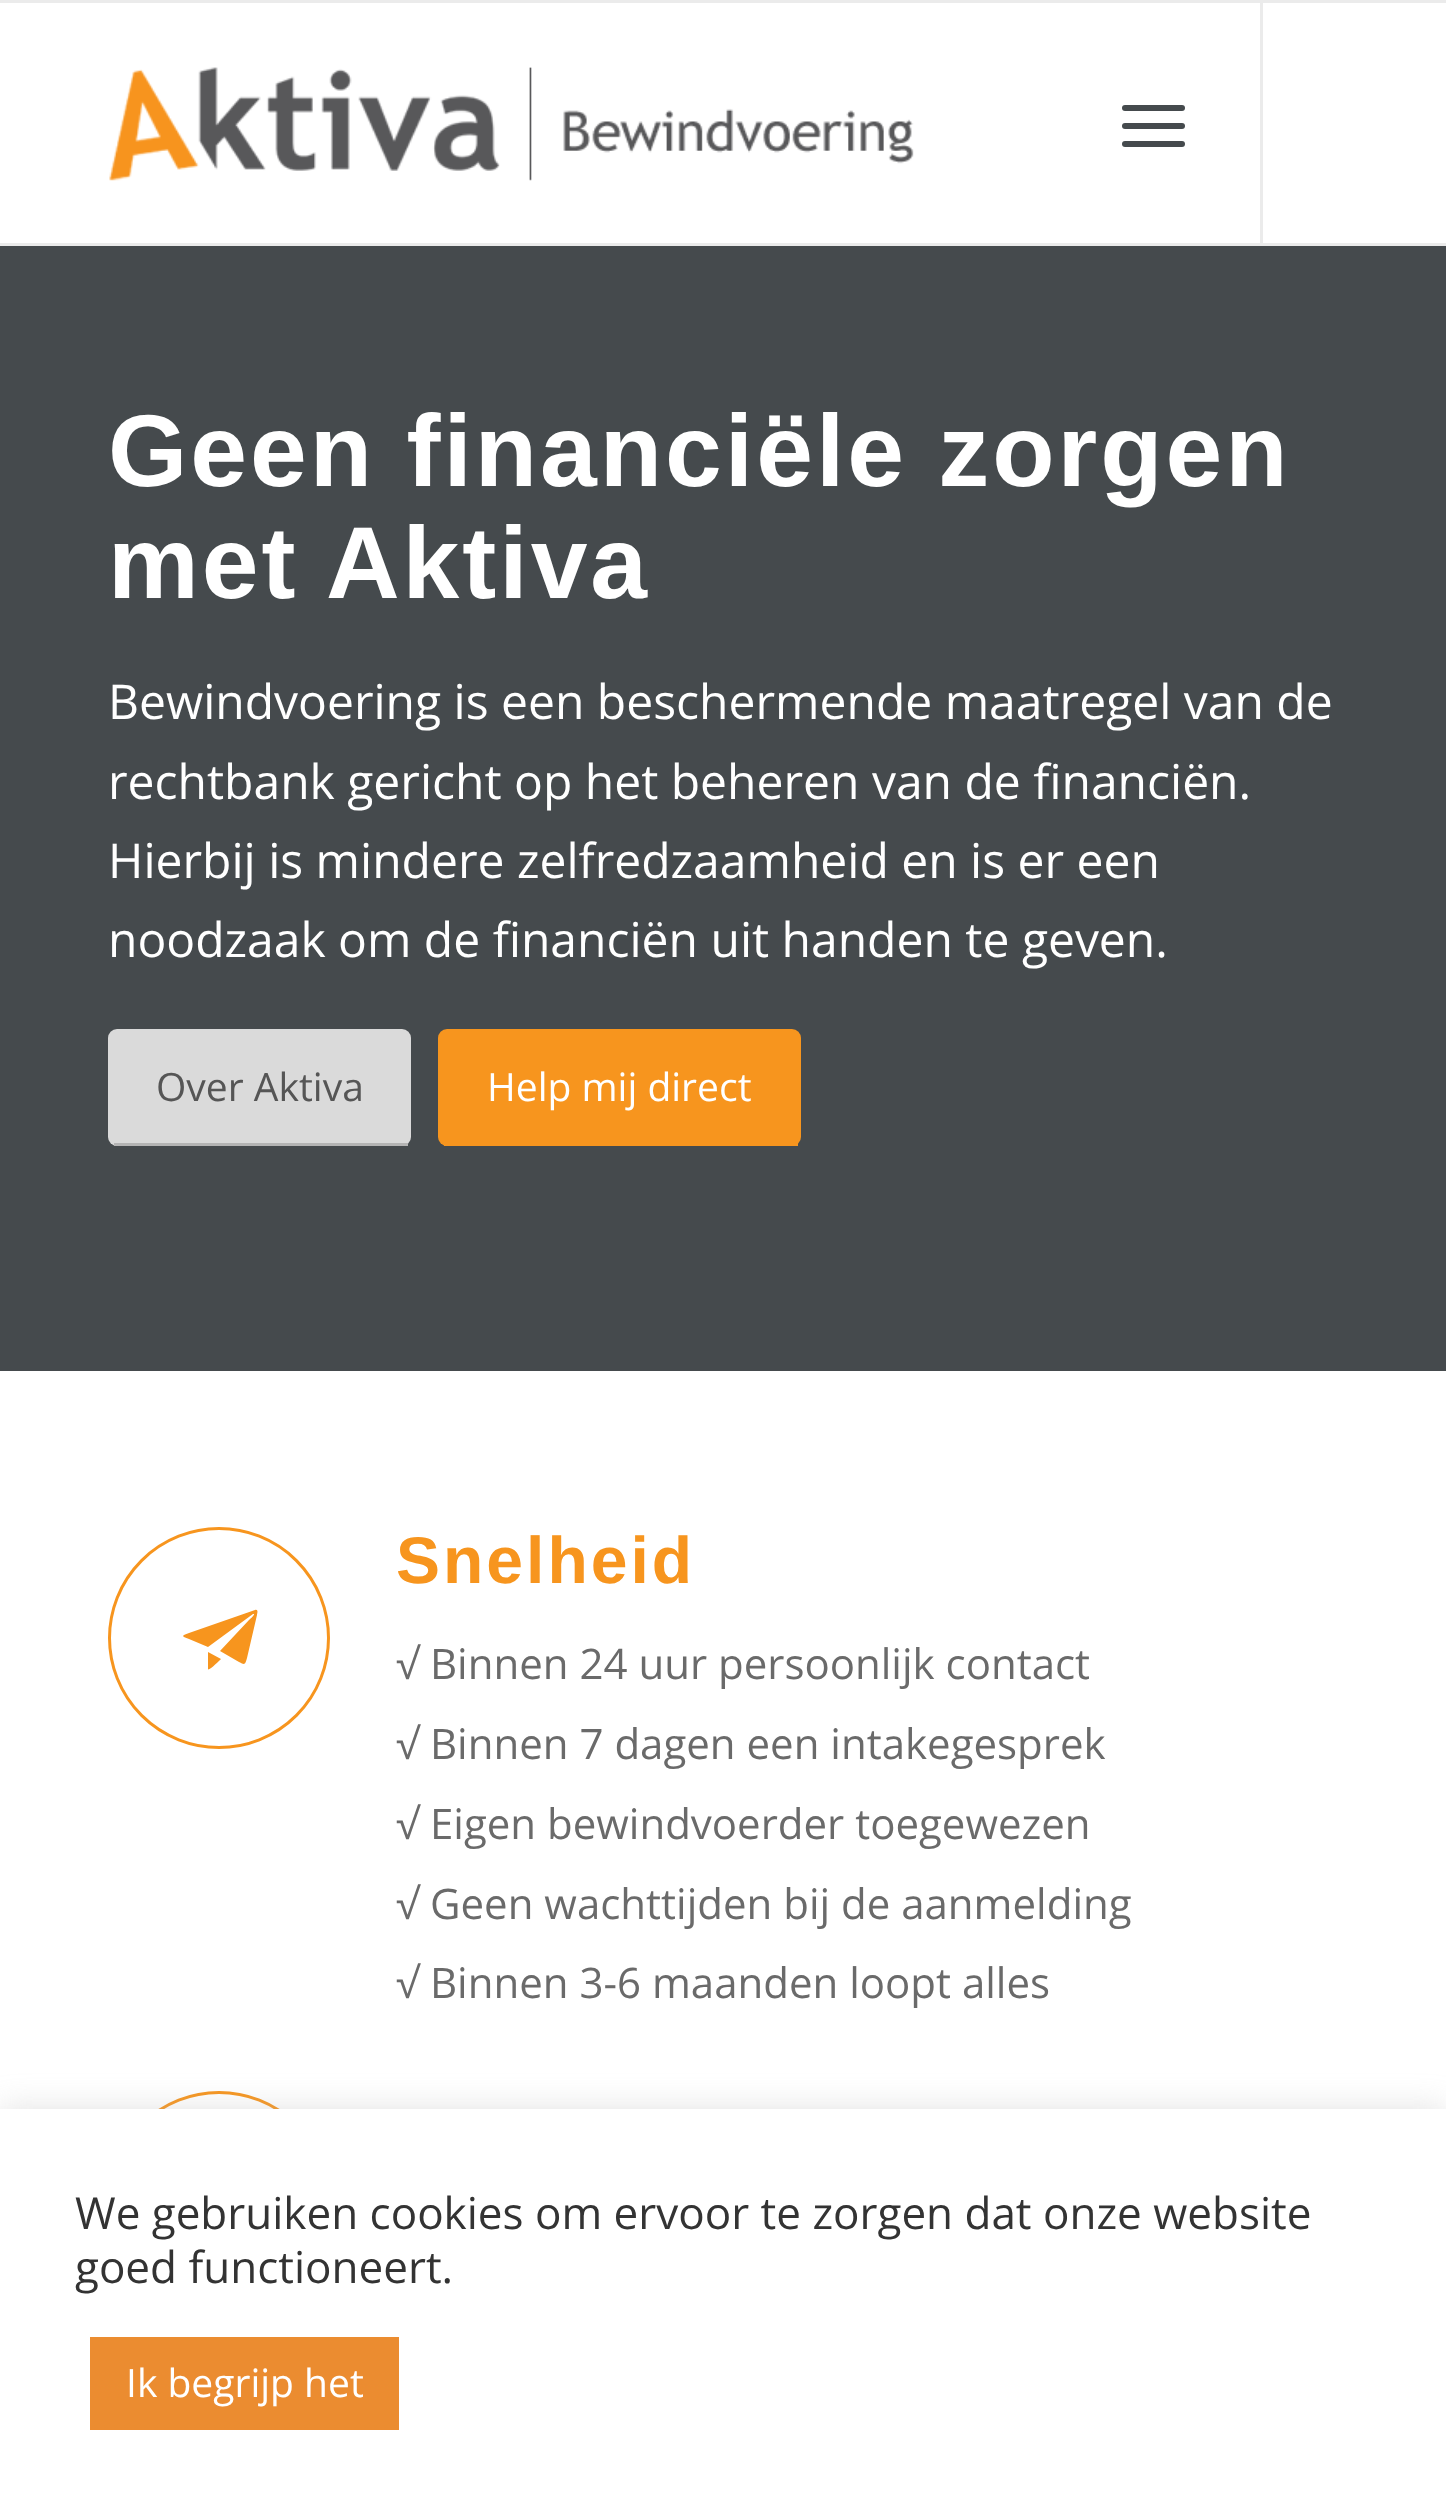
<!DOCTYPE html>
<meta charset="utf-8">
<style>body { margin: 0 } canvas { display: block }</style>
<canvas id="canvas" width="1446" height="2520"></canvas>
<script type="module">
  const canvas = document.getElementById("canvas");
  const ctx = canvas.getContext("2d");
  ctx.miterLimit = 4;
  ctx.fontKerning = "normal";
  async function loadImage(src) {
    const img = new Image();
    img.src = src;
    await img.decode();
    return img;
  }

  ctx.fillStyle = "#ffffff";
  ctx.fillRect(0, 0, 1446, 2520);
  ctx.fillStyle = "#ebebeb";
  ctx.fillRect(0, 0, 1446, 3);
  ctx.fillRect(0, 243, 1446, 3);
  ctx.drawImage(await loadImage("img1.png"), 109, 67, 805, 114);
  ctx.fillRect(1260, 3, 3, 240);
  ctx.fillStyle = "#454a4d";
  ctx.beginPath();
  ctx.roundRect(1122, 123, 63, 6, 3);
  ctx.fill();
  ctx.beginPath();
  ctx.roundRect(1122, 105, 63, 6, 3);
  ctx.fill();
  ctx.beginPath();
  ctx.roundRect(1122, 141, 63, 6, 3);
  ctx.fill();
  ctx.fillRect(0, 246, 1446, 1125);
  ctx.letterSpacing = "3px";
  ctx.font = "bold 102px Liberation Sans";
  ctx.fillStyle = "#ffffff";
  ctx.fillText("Geen financiële zorgen", 108, 486);
  ctx.fillText("met Aktiva", 108, 598);
  ctx.letterSpacing = "0px";
  ctx.font = "48px Open Sans";
  ctx.fillText("Bewindvoering is een beschermende maatregel van de", 108, 719);
  ctx.fillText("rechtbank gericht op het beheren van de financiën.", 108, 799);
  ctx.fillText("Hierbij is mindere zelfredzaamheid en is er een", 108, 878);
  ctx.fillText("noodzaak om de financiën uit handen te geven.", 108, 957);
  ctx.fillStyle = "#dadada";
  ctx.beginPath();
  ctx.roundRect(108, 1029, 303, 117, 9);
  ctx.fill();
  ctx.fillStyle = "#b4b4b4";
  ctx.fillRect(114, 1143, 294, 3);
  ctx.font = "39px Open Sans";
  ctx.fillStyle = "#555555";
  ctx.fillText("Over Aktiva", 156, 1101);
  ctx.fillStyle = "#f7951e";
  ctx.beginPath();
  ctx.roundRect(438, 1029, 363, 117, 9);
  ctx.fill();
  ctx.fillRect(444, 1143, 354, 3);
  ctx.fillStyle = "#ffffff";
  ctx.fillText("Help mij direct", 487, 1101);
  ctx.beginPath();
  ctx.arc(219, 1638, 109.5, 0, Math.PI * 2);
  ctx.strokeStyle = "#f7951e";
  ctx.lineWidth = 3;
  ctx.stroke();
  ctx.fillStyle = "#f7951e";
  ctx.beginPath();
  ctx.moveTo(255, 1610);
  ctx.bezierCurveTo(259, 1609, 257, 1614, 257, 1615);
  ctx.lineTo(247, 1658);
  ctx.bezierCurveTo(245, 1665, 245, 1665, 239, 1662);
  ctx.lineTo(220, 1651);
  ctx.lineTo(249, 1620);
  ctx.bezierCurveTo(249, 1620, 255, 1615, 254, 1614);
  ctx.lineTo(253, 1614);
  ctx.lineTo(208, 1647);
  ctx.lineTo(189, 1639);
  ctx.bezierCurveTo(181, 1636, 181, 1636, 189, 1633);
  ctx.closePath();
  ctx.moveTo(208, 1669);
  ctx.lineTo(208, 1652);
  ctx.lineTo(221, 1659);
  ctx.bezierCurveTo(220, 1660, 208, 1672, 208, 1669);
  ctx.closePath();
  ctx.fill();
  ctx.letterSpacing = "3px";
  ctx.font = "bold 66px Liberation Sans";
  ctx.fillText("Snelheid", 396, 1583);
  ctx.letterSpacing = "0px";
  ctx.font = "42px Open Sans";
  ctx.fillStyle = "#6a6a6a";
  ctx.fillText("√ Binnen 24 uur persoonlijk contact", 396, 1679);
  ctx.fillText("√ Binnen 7 dagen een intakegesprek", 396, 1759);
  ctx.fillText("√ Eigen bewindvoerder toegewezen", 396, 1839);
  ctx.fillText("√ Geen wachttijden bij de aanmelding", 396, 1919);
  ctx.fillText("√ Binnen 3-6 maanden loopt alles", 396, 1998);
  ctx.beginPath();
  ctx.arc(219, 2202, 109.5, 0, Math.PI * 2);
  ctx.stroke();
  ctx.fillStyle = "rgba(172, 171, 171, 0.3)";
  ctx.filter = "blur(15px)";
  ctx.beginPath();
  ctx.rect(0, 2106, 1446, 411);
  ctx.fill();
  ctx.filter = "none";
  ctx.fillStyle = "#ffffff";
  ctx.fillRect(0, 2109, 1446, 411);
  ctx.font = "44px Open Sans";
  ctx.fillStyle = "#333333";
  ctx.fillText("We gebruiken cookies om ervoor te zorgen dat onze website", 75, 2229);
  ctx.fillText("goed functioneert.", 75, 2283);
  ctx.fillStyle = "#eb8c30";
  ctx.fillRect(90, 2337, 309, 93);
  ctx.font = "39px Open Sans";
  ctx.fillStyle = "#ffffff";
  ctx.fillText("Ik begrijp het", 126, 2397);
</script>
